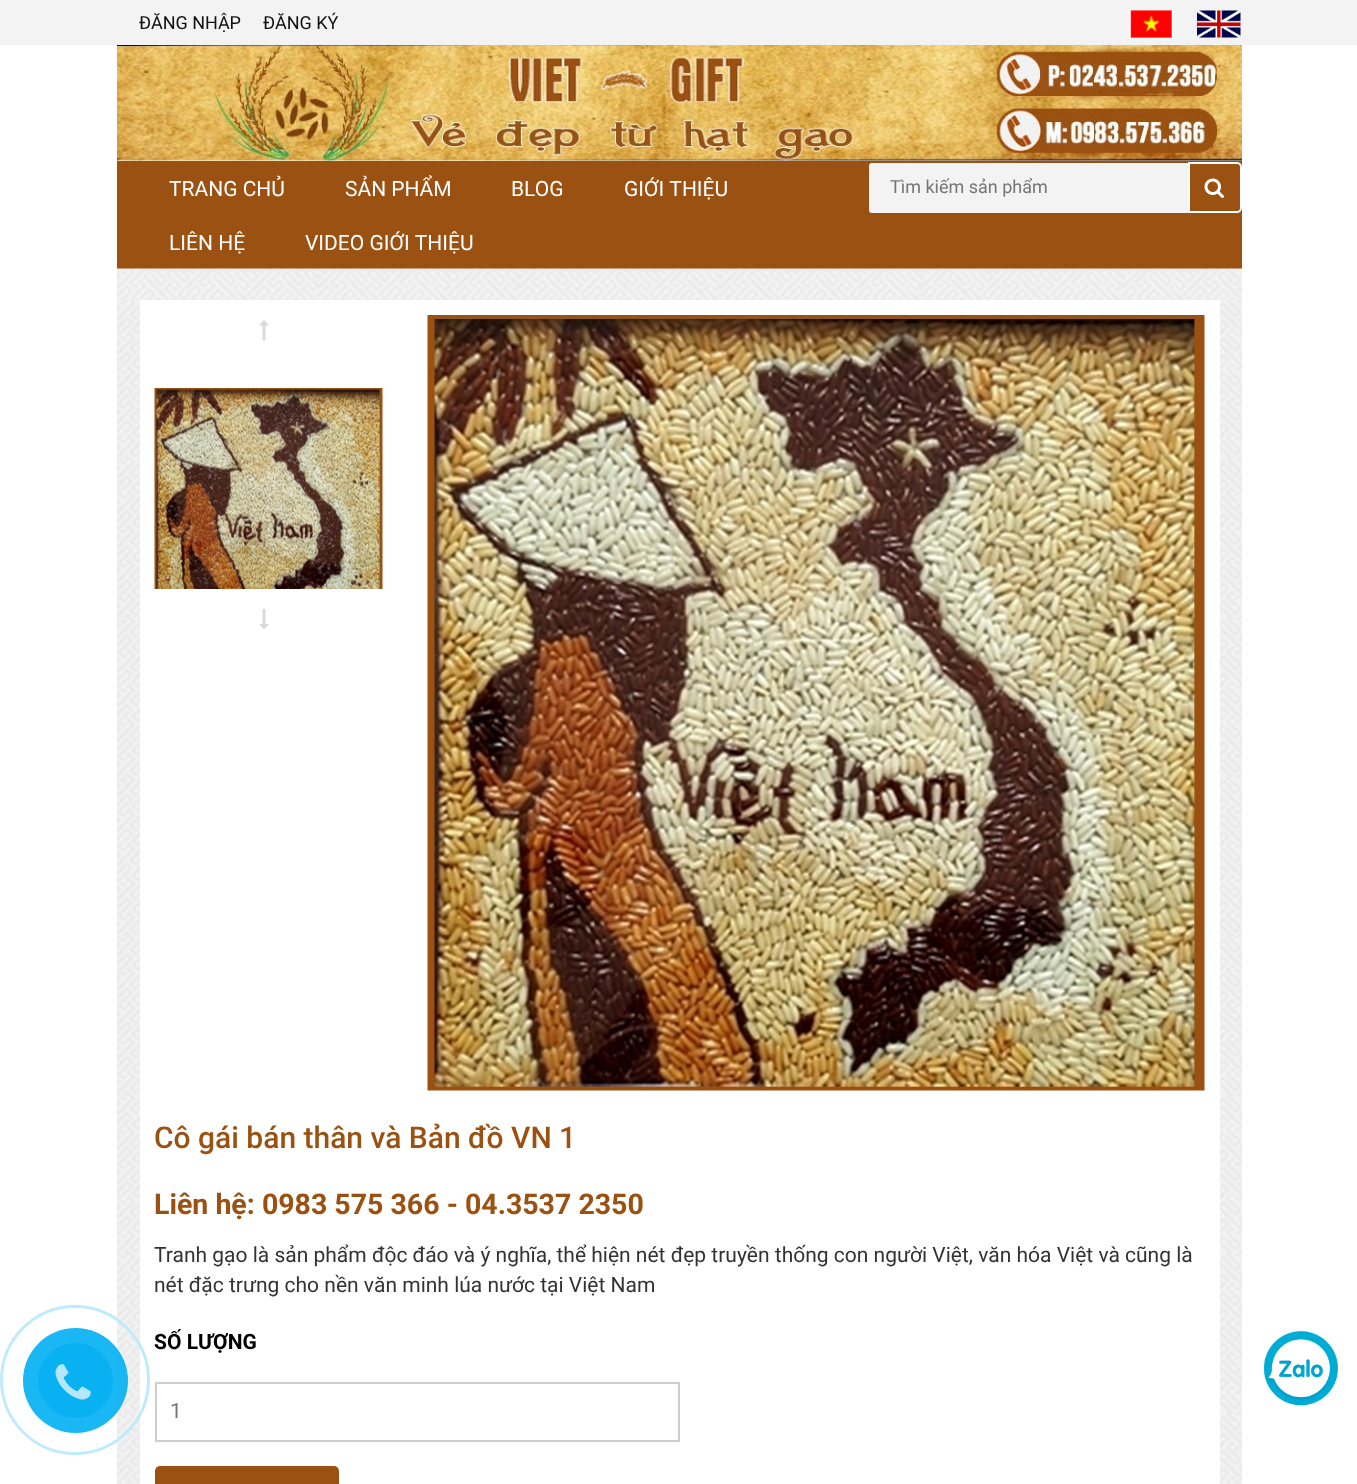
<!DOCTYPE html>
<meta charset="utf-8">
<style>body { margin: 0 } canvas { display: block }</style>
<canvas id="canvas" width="1357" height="1484"></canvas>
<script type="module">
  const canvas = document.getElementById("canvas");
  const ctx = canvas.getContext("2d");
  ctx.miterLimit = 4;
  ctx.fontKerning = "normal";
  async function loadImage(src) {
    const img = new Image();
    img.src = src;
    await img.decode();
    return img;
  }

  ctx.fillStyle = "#ffffff";
  ctx.fillRect(0, 0, 1357, 1484);
  ctx.drawImage(await loadImage("img7.png"), 117, 300, 1125, 1184);
  ctx.fillRect(140, 300, 1080, 1184);
  ctx.beginPath();
  ctx.arc(75, 1380, 73.5, 0, Math.PI * 2);
  ctx.strokeStyle = "#bfebfc";
  ctx.lineWidth = 3;
  ctx.stroke();
  ctx.fillStyle = "rgba(0, 175, 242, 0.9)";
  ctx.beginPath();
  ctx.arc(75.5, 1380.5, 52.5, 0, Math.PI * 2);
  ctx.fill();
  ctx.fillStyle = "#08b1f2";
  ctx.beginPath();
  ctx.arc(75.5, 1380.5, 37.5, 0, Math.PI * 2);
  ctx.fill();
  ctx.drawImage(await loadImage("img1.png"), 55, 1364, 36, 36);
  ctx.fillStyle = "#f3f3f3";
  ctx.fillRect(0, 0, 1357, 45);
  ctx.font = "18px Roboto";
  ctx.fillStyle = "#111111";
  ctx.fillText("ĐĂNG NHẬP", 139, 29);
  ctx.fillText("ĐĂNG KÝ", 263, 29);
  ctx.drawImage(await loadImage("img2.png"), 1129, 9, 44, 30);
  ctx.drawImage(await loadImage("img3.png"), 1197, 10, 44, 28);
  ctx.drawImage(await loadImage("img4.png"), 117, 45, 1125, 116);
  ctx.fillStyle = "#9b5111";
  ctx.fillRect(117, 161, 1125, 108);
  ctx.font = "21px Roboto";
  ctx.fillStyle = "#ffffff";
  ctx.fillText("TRANG CHỦ", 169, 196);
  ctx.fillText("SẢN PHẨM", 345, 196);
  ctx.fillText("BLOG", 511, 196);
  ctx.fillText("GIỚI THIỆU", 624, 196);
  ctx.fillText("LIÊN HỆ", 169, 250);
  ctx.fillText("VIDEO GIỚI THIỆU", 305, 250);
  ctx.fillStyle = "#f3f3f3";
  ctx.beginPath();
  ctx.roundRect(868, 162, 373, 52, 4);
  ctx.fill();
  ctx.strokeStyle = "#9b5111";
  ctx.lineWidth = 2;
  ctx.stroke();
  ctx.font = "18px Roboto";
  ctx.fillStyle = "#757575";
  ctx.fillText("Tìm kiếm sản phẩm", 890, 193);
  ctx.fillStyle = "#9b5111";
  ctx.beginPath();
  ctx.roundRect(1189, 163, 52, 49, [0, 4, 4, 0]);
  ctx.fill();
  ctx.strokeStyle = "#ffffff";
  ctx.stroke();
  ctx.drawImage(await loadImage("img5.png"), 1204, 178, 20, 20);
  ctx.drawImage(await loadImage("img6.png"), 117, 268, 1125, 32);
  ctx.fillStyle = "#ebebeb";
  ctx.fillRect(140, 269, 1080, 2);
  ctx.drawImage(await loadImage("img8.png"), 259, 320, 10, 21);
  ctx.drawImage(await loadImage("img9.png"), 259, 609, 10, 20);
  ctx.drawImage(await loadImage("img10.png"), 154, 388, 229, 201);
  ctx.drawImage(await loadImage("img11.png"), 427, 315, 778, 776);
  ctx.font = "500 30px Roboto";
  ctx.fillStyle = "#9b5111";
  ctx.fillText("Cô gái bán thân và Bản đồ VN 1", 154, 1148);
  ctx.font = "bold 28.5px Roboto";
  ctx.fillText("Liên hệ: 0983 575 366 - 04.3537 2350", 154, 1214);
  ctx.font = "21px Roboto";
  ctx.fillStyle = "#333333";
  ctx.fillText("Tranh gạo là sản phẩm độc đáo và ý nghĩa, thể hiện nét đẹp truyền thống con người Việt, văn hóa Việt và cũng là", 154, 1262);
  ctx.fillText("nét đặc trưng cho nền văn minh lúa nước tại Việt Nam", 154, 1292);
  ctx.font = "bold 21px Roboto";
  ctx.fillStyle = "#000000";
  ctx.fillText("SỐ LƯỢNG", 154, 1349);
  ctx.strokeStyle = "#cdcdcd";
  ctx.strokeRect(156, 1383, 523, 58);
  ctx.font = "21px Roboto";
  ctx.fillStyle = "#757575";
  ctx.fillText("1", 170, 1418);
  ctx.fillStyle = "#9b5111";
  ctx.beginPath();
  ctx.roundRect(155, 1466, 184, 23, 5);
  ctx.fill();
  ctx.drawImage(await loadImage("img12.png"), 1263, 1330, 76, 76);
</script>
